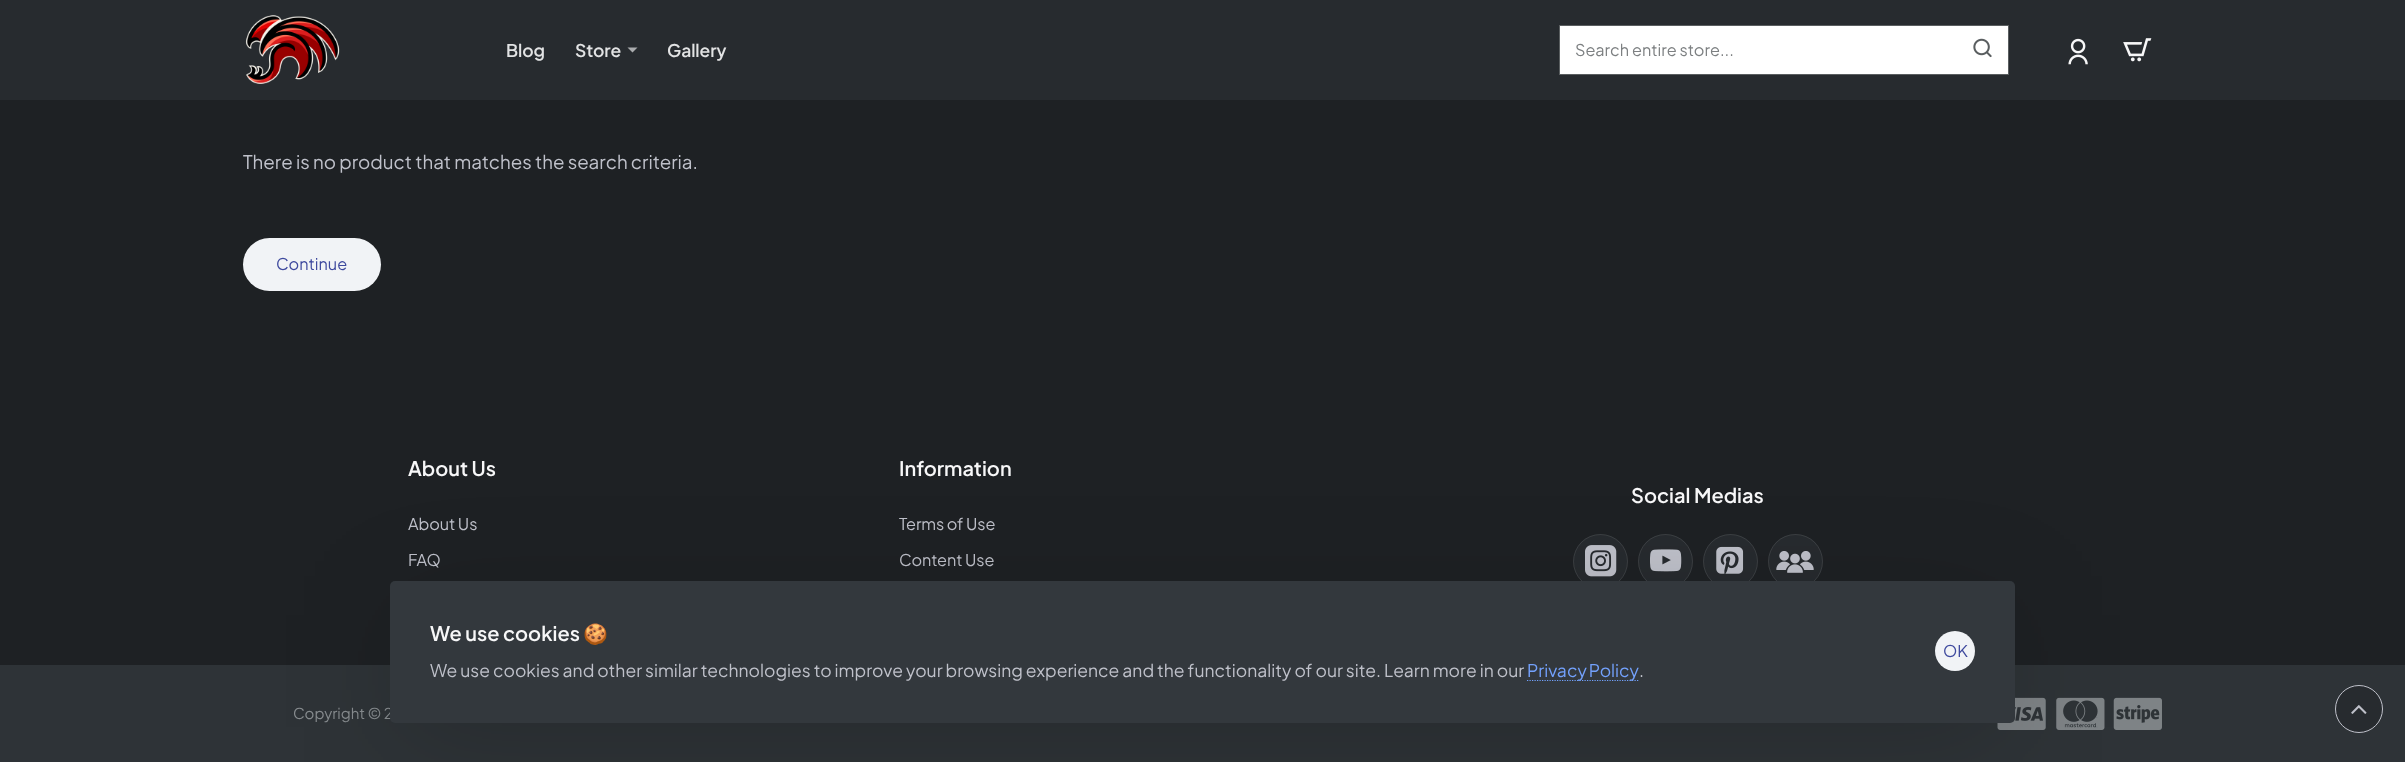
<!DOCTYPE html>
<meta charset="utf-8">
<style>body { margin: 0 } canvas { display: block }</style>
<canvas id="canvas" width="2405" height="762"></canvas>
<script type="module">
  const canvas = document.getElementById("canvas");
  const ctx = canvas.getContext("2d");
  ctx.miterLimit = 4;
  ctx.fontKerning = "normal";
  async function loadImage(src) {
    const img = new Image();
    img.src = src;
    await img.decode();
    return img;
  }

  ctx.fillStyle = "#1e2124";
  ctx.fillRect(0, 0, 2405, 762);
  ctx.fillStyle = "#272b2f";
  ctx.fillRect(0, 0, 2405, 100);
  ctx.drawImage(await loadImage("img1.png"), 245, 15, 95, 69);
  ctx.letterSpacing = "-0.1px";
  ctx.font = "600 17.5px Plus Jakarta Sans";
  ctx.fillStyle = "#e2e3e4";
  ctx.fillText("Blog", 506, 57);
  ctx.fillText("Store", 575, 57);
  ctx.fillStyle = "#aaacae";
  ctx.beginPath();
  ctx.moveTo(627.5, 47.5);
  ctx.lineTo(637.5, 47.5);
  ctx.lineTo(632.5, 52.5);
  ctx.closePath();
  ctx.fill();
  ctx.fillStyle = "#e2e3e4";
  ctx.fillText("Gallery", 667, 57);
  ctx.strokeStyle = "#5a5e60";
  ctx.strokeRect(1559.5, 25.5, 449, 49);
  ctx.fillStyle = "#ffffff";
  ctx.fillRect(1560, 26, 448, 48);
  ctx.letterSpacing = "0px";
  ctx.font = "16.25px Plus Jakarta Sans";
  ctx.fillStyle = "#7d8082";
  ctx.fillText("Search entire store...", 1575, 56);
  ctx.drawImage(await loadImage("img2.png"), 1973, 38, 19, 20);
  ctx.drawImage(await loadImage("img3.png"), 2068, 38, 20, 27);
  ctx.drawImage(await loadImage("img4.png"), 2123, 38, 29, 24);
  ctx.font = "18.75px Plus Jakarta Sans";
  ctx.fillStyle = "#bfc1ca";
  ctx.fillText("There is no product that matches the search criteria.", 243, 169);
  ctx.fillStyle = "#f1f3f6";
  ctx.beginPath();
  ctx.roundRect(243, 238, 138, 53, 26.5);
  ctx.fill();
  ctx.font = "16.25px Plus Jakarta Sans";
  ctx.fillStyle = "#3e499e";
  ctx.fillText("Continue", 276, 270);
  ctx.font = "600 20px Plus Jakarta Sans";
  ctx.fillStyle = "#f7f7f8";
  ctx.fillText("About Us", 408, 476);
  ctx.letterSpacing = "-0.1px";
  ctx.font = "16.25px Plus Jakarta Sans";
  ctx.fillStyle = "#bfc1ca";
  ctx.fillText("About Us", 408, 530);
  ctx.fillText("FAQ", 408, 566);
  ctx.letterSpacing = "0px";
  ctx.font = "600 20px Plus Jakarta Sans";
  ctx.fillStyle = "#f7f7f8";
  ctx.fillText("Information", 899, 476);
  ctx.letterSpacing = "-0.1px";
  ctx.font = "16.25px Plus Jakarta Sans";
  ctx.fillStyle = "#bfc1ca";
  ctx.fillText("Terms of Use", 899, 530);
  ctx.fillText("Content Use", 899, 566);
  ctx.letterSpacing = "0px";
  ctx.font = "600 20px Plus Jakarta Sans";
  ctx.fillStyle = "#f7f7f8";
  ctx.fillText("Social Medias", 1631, 503);
  ctx.fillStyle = "#272b2f";
  ctx.beginPath();
  ctx.arc(1600.5, 561.5, 27.5, 0, Math.PI * 2);
  ctx.fill();
  ctx.beginPath();
  ctx.arc(1600.5, 561.5, 27, 0, Math.PI * 2);
  ctx.strokeStyle = "rgba(247, 247, 248, 0.1)";
  ctx.stroke();
  ctx.drawImage(await loadImage("img5.png"), 1585, 545, 32, 32);
  ctx.beginPath();
  ctx.arc(1665.5, 561.5, 27.5, 0, Math.PI * 2);
  ctx.fill();
  ctx.beginPath();
  ctx.arc(1665.5, 561.5, 27, 0, Math.PI * 2);
  ctx.stroke();
  ctx.drawImage(await loadImage("img6.png"), 1650, 549, 32, 23);
  ctx.beginPath();
  ctx.arc(1730.5, 561.5, 27.5, 0, Math.PI * 2);
  ctx.fill();
  ctx.beginPath();
  ctx.arc(1730.5, 561.5, 27, 0, Math.PI * 2);
  ctx.stroke();
  ctx.drawImage(await loadImage("img7.png"), 1716, 546, 28, 28);
  ctx.beginPath();
  ctx.arc(1795.5, 561.5, 27.5, 0, Math.PI * 2);
  ctx.fill();
  ctx.beginPath();
  ctx.arc(1795.5, 561.5, 27, 0, Math.PI * 2);
  ctx.stroke();
  ctx.drawImage(await loadImage("img8.png"), 1776, 551, 38, 22);
  ctx.fillStyle = "#2e3337";
  ctx.fillRect(0, 665, 2405, 97);
  ctx.font = "15px Plus Jakarta Sans";
  ctx.fillStyle = "#878c8f";
  ctx.fillText("Copyright © 2", 293, 719);
  ctx.drawImage(await loadImage("img9.png"), 1997, 697, 49, 33);
  ctx.drawImage(await loadImage("img10.png"), 2056, 697, 49, 33);
  ctx.drawImage(await loadImage("img11.png"), 2113, 697, 49, 33);
  ctx.fillStyle = "rgba(0, 0, 0, 0.2)";
  ctx.filter = "blur(56px)";
  ctx.beginPath();
  ctx.rect(403, 613, 1600, 116);
  ctx.fill();
  ctx.filter = "none";
  ctx.fillStyle = "#33383d";
  ctx.beginPath();
  ctx.roundRect(390, 581, 1625, 142, 5);
  ctx.fill();
  ctx.font = "600 20px Plus Jakarta Sans";
  ctx.fillStyle = "#f7f7f8";
  ctx.fillText("We use cookies", 430, 641);
  ctx.font = "bold 20px Noto Color Emoji";
  ctx.fillText("🍪", 583, 641);
  ctx.font = "17.5px Plus Jakarta Sans";
  ctx.fillStyle = "#bfc1ca";
  ctx.fillText("We use cookies and other similar technologies to improve your browsing experience and the functionality of our site. Learn more in our", 430, 677);
  ctx.beginPath();
  ctx.moveTo(1527, 680.5);
  ctx.lineTo(1639.5, 680.5);
  ctx.strokeStyle = "#73a1fc";
  ctx.lineWidth = 1.2;
  ctx.setLineDash([1.25, 1.25]);
  ctx.stroke();
  ctx.wordSpacing = "-1px";
  ctx.fillStyle = "#73a1fc";
  ctx.fillText("Privacy Policy", 1527, 677);
  ctx.wordSpacing = "0px";
  ctx.fillStyle = "#bfc1ca";
  ctx.fillText(".", 1639, 677);
  ctx.fillStyle = "#f1f3f6";
  ctx.beginPath();
  ctx.arc(1955, 651, 20, 0, Math.PI * 2);
  ctx.fill();
  ctx.font = "16.25px Plus Jakarta Sans";
  ctx.fillStyle = "#3e499e";
  ctx.fillText("OK", 1943, 657);
  ctx.fillStyle = "#272b2f";
  ctx.beginPath();
  ctx.arc(2359, 709, 23.5, 0, Math.PI * 2);
  ctx.fill();
  ctx.strokeStyle = "#bfc1ca";
  ctx.lineWidth = 1;
  ctx.setLineDash([]);
  ctx.stroke();
  ctx.drawImage(await loadImage("img12.png"), 2351, 705, 16, 9);
</script>
